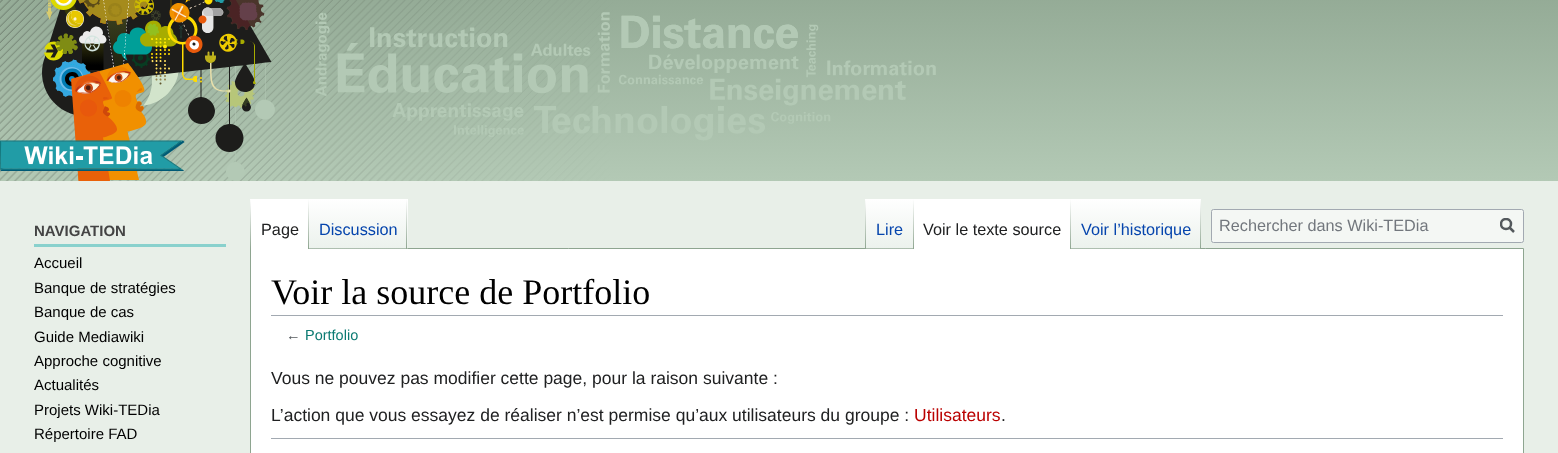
<!DOCTYPE html>
<meta charset="utf-8">
<style>body { margin: 0 } canvas { display: block }</style>
<canvas id="canvas" width="1558" height="453"></canvas>
<script type="module">
  const canvas = document.getElementById("canvas");
  const ctx = canvas.getContext("2d");
  ctx.miterLimit = 4;
  ctx.fontKerning = "normal";
  async function loadImage(src) {
    const img = new Image();
    img.src = src;
    await img.decode();
    return img;
  }
  let gradient;

  ctx.fillStyle = "#e8efe8";
  ctx.fillRect(0, 0, 1558, 453);
  ctx.drawImage(await loadImage("img1.png"), 0, 0, 1558, 181);
  ctx.drawImage(await loadImage("img2.png"), 42, 0, 233, 181);
  ctx.drawImage(await loadImage("img3.png"), 0, 140, 185, 31);
  ctx.fillStyle = "#89d1cd";
  ctx.fillRect(34, 244, 192, 3);
  ctx.font = "bold 15px Liberation Sans";
  ctx.fillStyle = "#444444";
  ctx.fillText("NAVIGATION", 34, 236);
  ctx.font = "15px Liberation Sans";
  ctx.fillStyle = "#000000";
  ctx.fillText("Accueil", 34, 268);
  ctx.fillText("Banque de stratégies", 34, 293);
  ctx.fillText("Banque de cas", 34, 317);
  ctx.fillText("Guide Mediawiki", 34, 342);
  ctx.fillText("Approche cognitive", 34, 366);
  ctx.fillText("Actualités", 34, 390);
  ctx.fillText("Projets Wiki-TEDia", 34, 415);
  ctx.fillText("Répertoire FAD", 34, 439);
  ctx.fillStyle = "#ffffff";
  ctx.beginPath();
  ctx.rect(250.5, 248.5, 1273, 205);
  ctx.fill();
  ctx.strokeStyle = "#8ea590";
  ctx.stroke();
  gradient = ctx.createLinearGradient(251, 199, 251, 249);
  gradient.addColorStop(0, "#ffffff");
  gradient.addColorStop(1, "#8ea590");
  ctx.fillStyle = gradient;
  ctx.fillRect(250, 199, 1, 50);
  ctx.fillStyle = "#ffffff";
  ctx.fillRect(251, 199, 57, 50);
  gradient = ctx.createLinearGradient(308, 199, 308, 249);
  gradient.addColorStop(0, "#ffffff");
  gradient.addColorStop(1, "#8ea590");
  ctx.fillStyle = gradient;
  ctx.fillRect(308, 199, 1, 50);
  ctx.font = "16.25px Liberation Sans";
  ctx.fillStyle = "#202122";
  ctx.fillText("Page", 261, 235);
  gradient = ctx.createLinearGradient(358, 249, 358, 199);
  gradient.addColorStop(0, "#8ea590");
  gradient.addColorStop(0.03, "#ecf2ed");
  gradient.addColorStop(1, "#ffffff");
  ctx.fillStyle = gradient;
  ctx.fillRect(309, 199, 99, 50);
  gradient = ctx.createLinearGradient(407, 199, 407, 249);
  gradient.addColorStop(0, "#ffffff");
  gradient.addColorStop(1, "#8ea590");
  ctx.fillStyle = gradient;
  ctx.fillRect(406, 199, 1, 50);
  ctx.fillStyle = "#0645ad";
  ctx.fillText("Discussion", 319, 235);
  gradient = ctx.createLinearGradient(866, 199, 866, 249);
  gradient.addColorStop(0, "#ffffff");
  gradient.addColorStop(1, "#8ea590");
  ctx.fillStyle = gradient;
  ctx.fillRect(865, 199, 1, 50);
  gradient = ctx.createLinearGradient(890, 249, 890, 199);
  gradient.addColorStop(0, "#8ea590");
  gradient.addColorStop(0.03, "#ecf2ed");
  gradient.addColorStop(1, "#ffffff");
  ctx.fillStyle = gradient;
  ctx.fillRect(866, 199, 47, 50);
  gradient = ctx.createLinearGradient(913, 199, 913, 249);
  gradient.addColorStop(0, "#ffffff");
  gradient.addColorStop(1, "#8ea590");
  ctx.fillStyle = gradient;
  ctx.fillRect(913, 199, 1, 50);
  ctx.fillStyle = "#0645ad";
  ctx.fillText("Lire", 876, 235);
  ctx.fillStyle = "#ffffff";
  ctx.fillRect(914, 199, 156, 50);
  gradient = ctx.createLinearGradient(1071, 199, 1071, 249);
  gradient.addColorStop(0, "#ffffff");
  gradient.addColorStop(1, "#8ea590");
  ctx.fillStyle = gradient;
  ctx.fillRect(1070, 199, 1, 50);
  ctx.fillStyle = "#202122";
  ctx.fillText("Voir le texte source", 923, 235);
  gradient = ctx.createLinearGradient(1136, 249, 1136, 199);
  gradient.addColorStop(0, "#8ea590");
  gradient.addColorStop(0.03, "#ecf2ed");
  gradient.addColorStop(1, "#ffffff");
  ctx.fillStyle = gradient;
  ctx.fillRect(1071, 199, 129, 50);
  gradient = ctx.createLinearGradient(1201, 199, 1201, 249);
  gradient.addColorStop(0, "#ffffff");
  gradient.addColorStop(1, "#8ea590");
  ctx.fillStyle = gradient;
  ctx.fillRect(1200, 199, 1, 50);
  ctx.fillStyle = "#0645ad";
  ctx.fillText("Voir l’historique", 1081, 235);
  ctx.fillStyle = "#f4f7f4";
  ctx.beginPath();
  ctx.roundRect(1211.5, 209.5, 312, 33, 2);
  ctx.fill();
  ctx.strokeStyle = "#a2a9b1";
  ctx.stroke();
  ctx.fillStyle = "#72777d";
  ctx.fillText("Rechercher dans Wiki-TEDia", 1219, 231);
  ctx.beginPath();
  ctx.moveTo(1514, 232);
  ctx.lineTo(1509, 227);
  ctx.strokeStyle = "#54595d";
  ctx.lineWidth = 2.5;
  ctx.stroke();
  ctx.save();
  ctx.beginPath();
  ctx.rect(1500, 218, 15, 16);
  ctx.clip();
  ctx.beginPath();
  ctx.arc(1506, 224, 5, 0, Math.PI * 2);
  ctx.stroke();
  ctx.restore();
  ctx.fillStyle = "#a2a9b1";
  ctx.fillRect(271, 315, 1232, 1);
  ctx.font = "36px Liberation Serif";
  ctx.fillStyle = "#000000";
  ctx.fillText("Voir la source de Portfolio", 271, 304);
  ctx.font = "14.5px Liberation Sans";
  ctx.fillStyle = "#54595d";
  ctx.fillText("←", 286, 340);
  ctx.fillStyle = "#0b7a72";
  ctx.fillText("Portfolio", 305, 340);
  ctx.font = "17.5px Liberation Sans";
  ctx.fillStyle = "#202122";
  ctx.fillText("Vous ne pouvez pas modifier cette page, pour la raison suivante :", 271, 384);
  ctx.fillText("L’action que vous essayez de réaliser n’est permise qu’aux utilisateurs du groupe :", 271, 421);
  ctx.fillStyle = "#ba0000";
  ctx.fillText("Utilisateurs", 914, 421);
  ctx.fillStyle = "#202122";
  ctx.fillText(".", 1001, 421);
  ctx.fillStyle = "#a2a9b1";
  ctx.fillRect(271, 438, 1232, 1);
</script>
